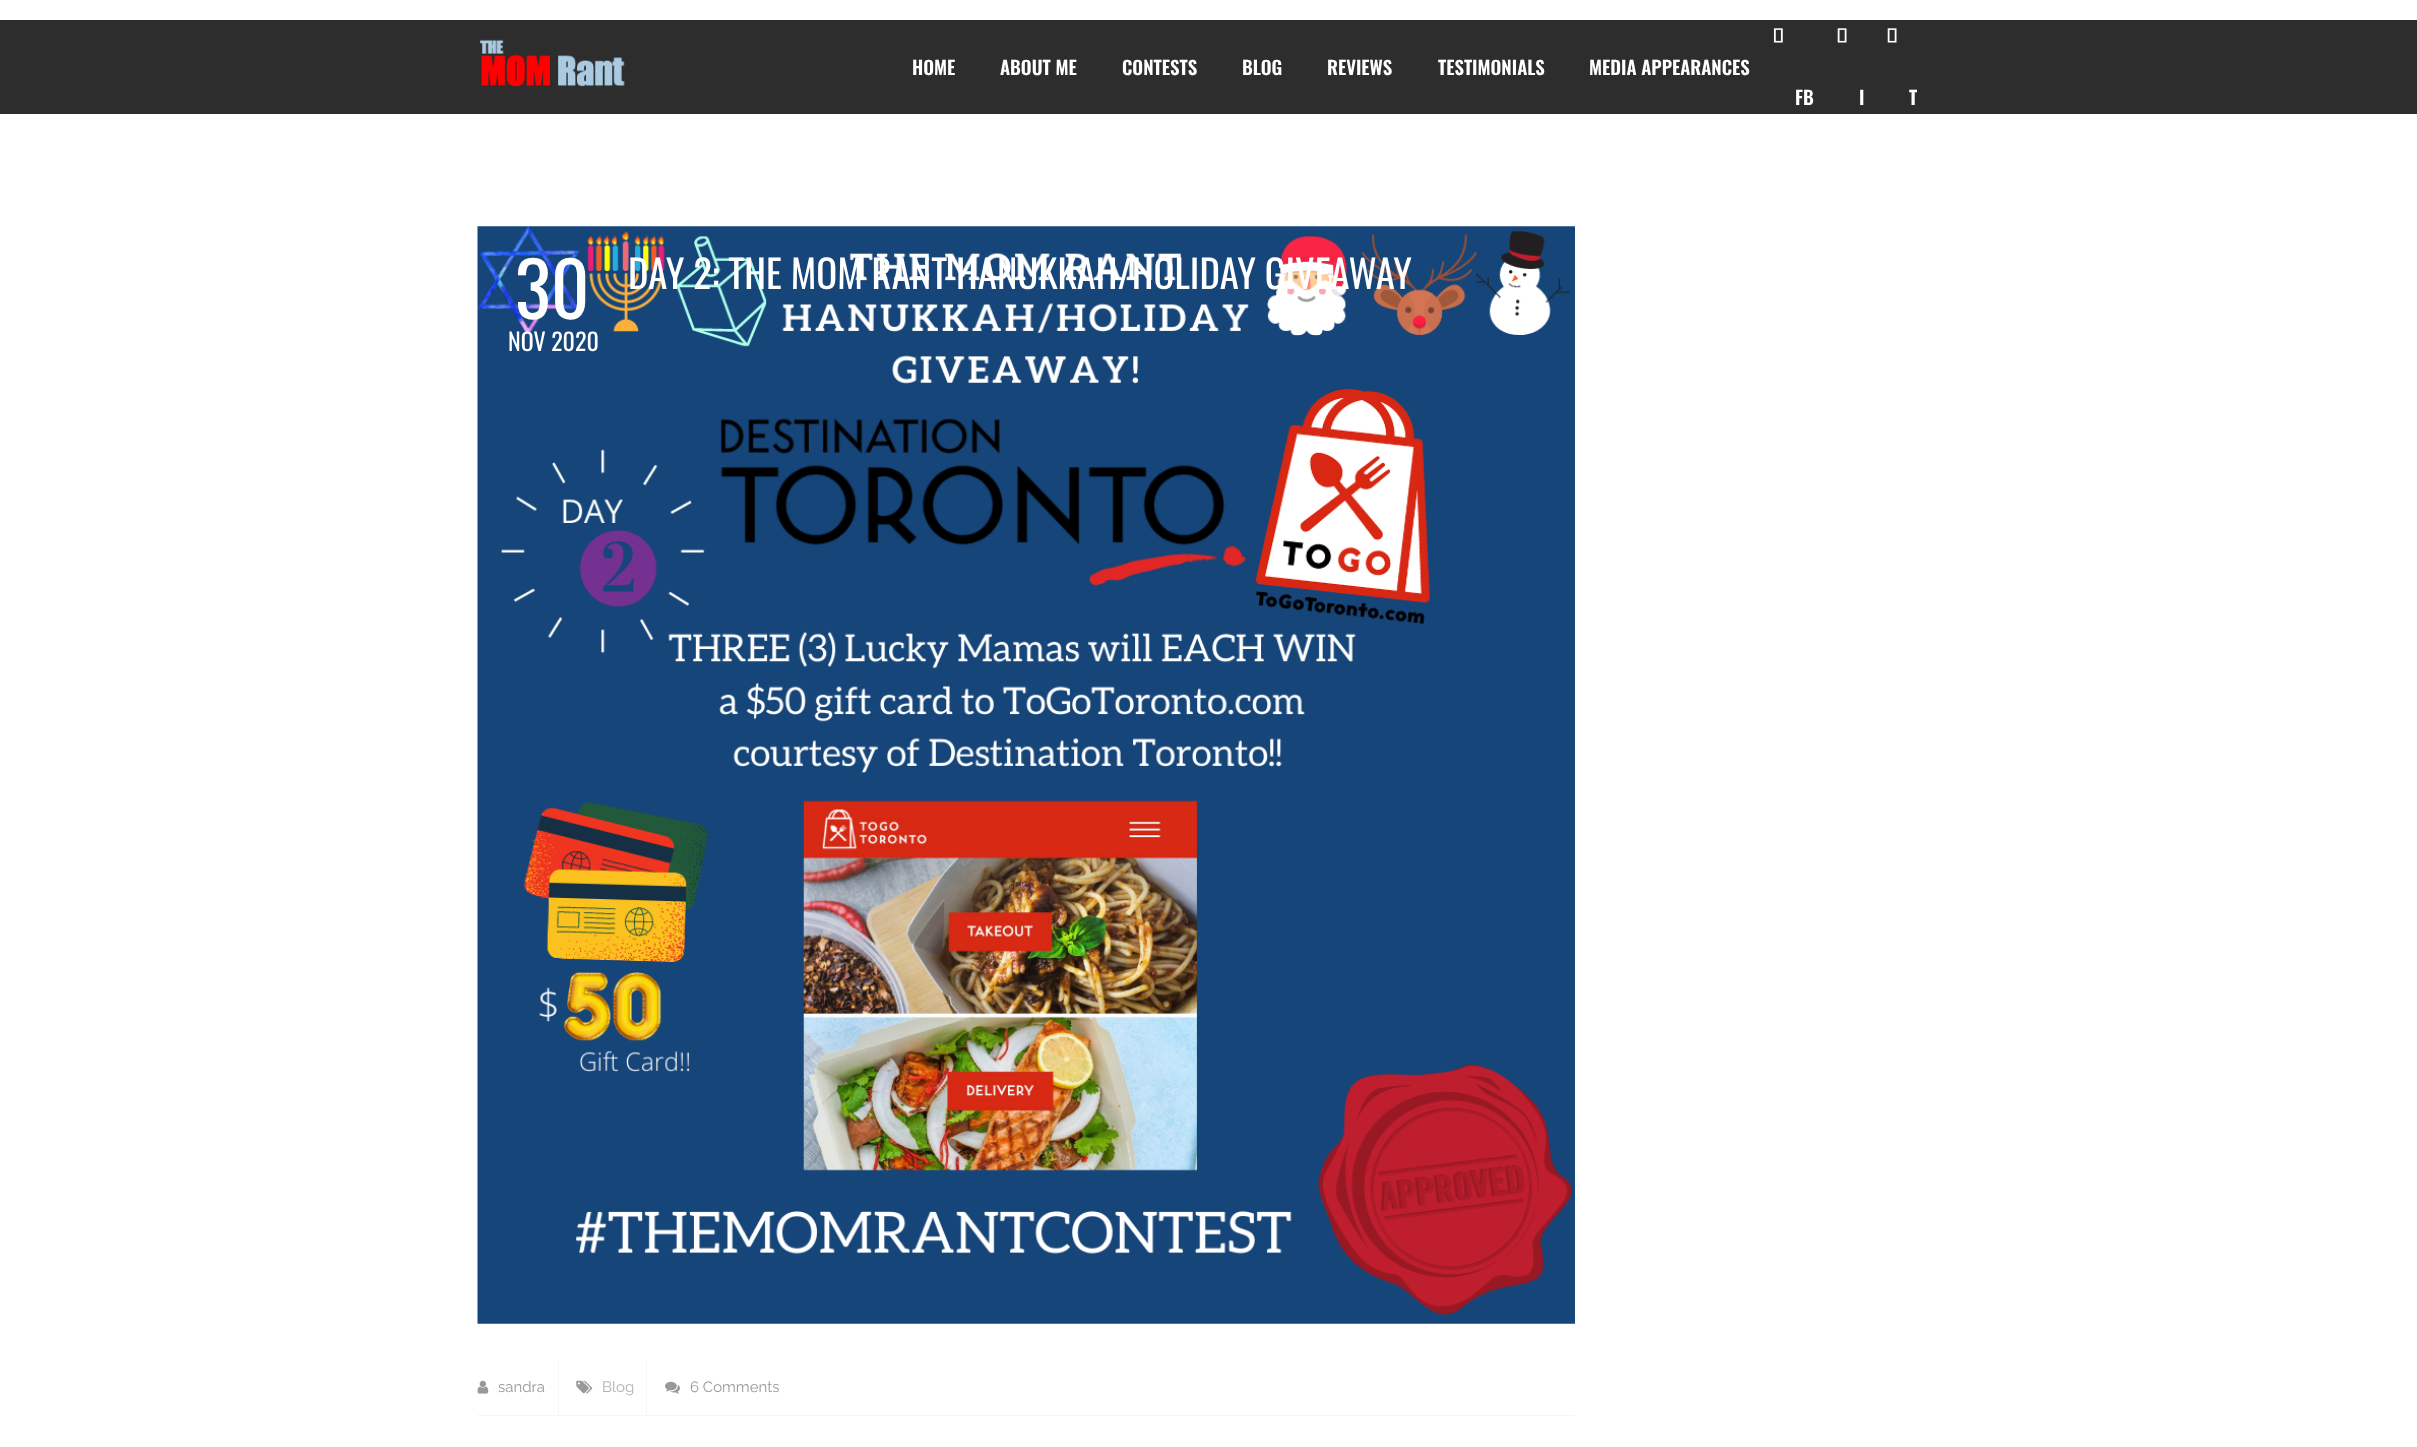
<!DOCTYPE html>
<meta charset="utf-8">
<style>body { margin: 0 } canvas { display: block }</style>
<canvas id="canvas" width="2417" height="1447"></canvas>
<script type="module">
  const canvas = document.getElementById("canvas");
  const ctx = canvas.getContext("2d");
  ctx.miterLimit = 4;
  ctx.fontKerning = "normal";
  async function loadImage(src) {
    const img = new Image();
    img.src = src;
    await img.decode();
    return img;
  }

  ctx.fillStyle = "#ffffff";
  ctx.fillRect(0, 0, 2417, 1447);
  ctx.fillStyle = "#2d2d2d";
  ctx.fillRect(0, 20, 2417, 94);
  ctx.drawImage(await loadImage("img1.png"), 480, 39, 145, 48);
  ctx.font = "600 18.75px Oswald";
  ctx.fillStyle = "#ffffff";
  ctx.fillText("HOME", 912, 75);
  ctx.fillText("ABOUT ME", 1000, 75);
  ctx.fillText("CONTESTS", 1122, 75);
  ctx.fillText("BLOG", 1242, 75);
  ctx.fillText("REVIEWS", 1327, 75);
  ctx.fillText("TESTIMONIALS", 1438, 75);
  ctx.fillText("MEDIA APPEARANCES", 1589, 75);
  ctx.drawImage(await loadImage("img2.png"), 1773, 28, 10, 15);
  ctx.fillText("FB", 1795, 105);
  ctx.drawImage(await loadImage("img3.png"), 1837, 28, 10, 15);
  ctx.fillText("I", 1859, 105);
  ctx.drawImage(await loadImage("img3.png"), 1887, 28, 10, 15);
  ctx.fillText("T", 1909, 105);
  ctx.drawImage(await loadImage("img4.png"), 477, 226, 1098, 1098);
  ctx.font = "75px Oswald";
  ctx.fillText("30", 515, 319);
  ctx.font = "24px Oswald";
  ctx.fillText("NOV 2020", 508, 351);
  ctx.font = "38.75px Oswald";
  ctx.fillText("DAY 2: THE MOM RANT HANUKKAH/HOLIDAY GIVEAWAY", 628, 289);
  ctx.fillStyle = "#f5f5f5";
  ctx.fillRect(478, 1415, 1097, 1);
  ctx.fillRect(558, 1361, 1, 54);
  ctx.drawImage(await loadImage("img5.png"), 477, 1380, 12, 14);
  ctx.font = "100 15px Raleway";
  ctx.fillStyle = "#999999";
  ctx.fillText("sandra", 498, 1392);
  ctx.fillStyle = "#f5f5f5";
  ctx.fillRect(646, 1361, 1, 54);
  ctx.drawImage(await loadImage("img6.png"), 576, 1380, 17, 14);
  ctx.fillStyle = "#b3b3b3";
  ctx.fillText("Blog", 602, 1392);
  ctx.drawImage(await loadImage("img7.png"), 665, 1381, 15, 13);
  ctx.fillStyle = "#999999";
  ctx.fillText("6 Comments", 690, 1392);
</script>
